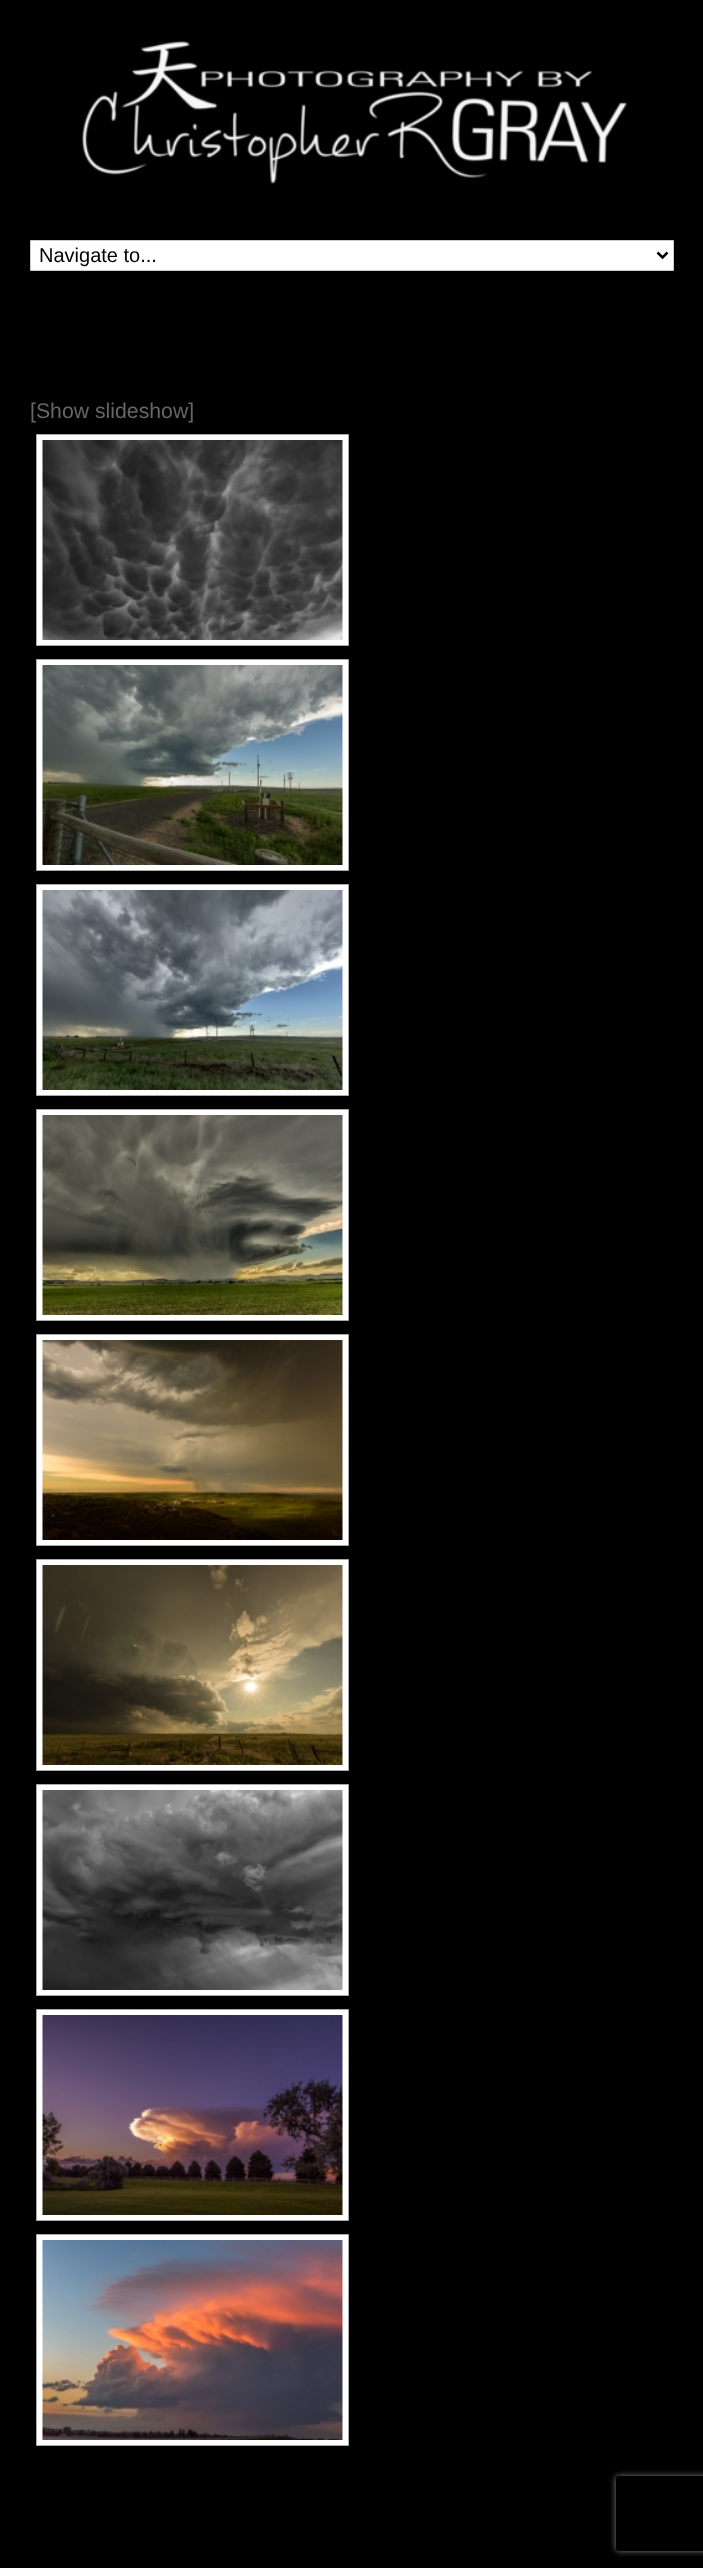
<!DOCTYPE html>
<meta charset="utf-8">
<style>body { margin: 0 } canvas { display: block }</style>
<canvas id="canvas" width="703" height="2568"></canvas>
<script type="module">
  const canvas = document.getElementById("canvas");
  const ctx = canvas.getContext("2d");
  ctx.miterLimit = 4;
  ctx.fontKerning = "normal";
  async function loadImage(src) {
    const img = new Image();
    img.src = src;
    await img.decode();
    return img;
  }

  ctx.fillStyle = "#000000";
  ctx.fillRect(0, 0, 703, 2568);
  ctx.drawImage(await loadImage("img1.png"), 82, 41, 545, 143);
  ctx.fillStyle = "#ffffff";
  ctx.beginPath();
  ctx.rect(30.5, 240.5, 643, 30);
  ctx.fill();
  ctx.strokeStyle = "#cccccc";
  ctx.stroke();
  ctx.beginPath();
  ctx.moveTo(657.5, 252.5);
  ctx.lineTo(662.5, 257.5);
  ctx.lineTo(667.5, 252.5);
  ctx.strokeStyle = "#000000";
  ctx.lineWidth = 2.5;
  ctx.stroke();
  ctx.font = "20px Liberation Sans";
  ctx.fillStyle = "#000000";
  ctx.fillText("Navigate to...", 39, 262);
  ctx.font = "21.25px Liberation Sans";
  ctx.fillStyle = "#666666";
  ctx.fillText("[Show slideshow]", 30, 418);
  ctx.fillStyle = "#ffffff";
  ctx.beginPath();
  ctx.rect(36.5, 434.5, 312, 211);
  ctx.fill();
  ctx.strokeStyle = "#a9a9a9";
  ctx.lineWidth = 1;
  ctx.stroke();
  ctx.drawImage(await loadImage("img2.png"), 42, 440, 301, 200);
  ctx.beginPath();
  ctx.rect(36.5, 659.5, 312, 211);
  ctx.fill();
  ctx.stroke();
  ctx.drawImage(await loadImage("img3.png"), 42, 665, 301, 200);
  ctx.beginPath();
  ctx.rect(36.5, 884.5, 312, 211);
  ctx.fill();
  ctx.stroke();
  ctx.drawImage(await loadImage("img4.png"), 42, 890, 301, 200);
  ctx.beginPath();
  ctx.rect(36.5, 1109.5, 312, 211);
  ctx.fill();
  ctx.stroke();
  ctx.drawImage(await loadImage("img5.png"), 42, 1115, 301, 200);
  ctx.beginPath();
  ctx.rect(36.5, 1334.5, 312, 211);
  ctx.fill();
  ctx.stroke();
  ctx.drawImage(await loadImage("img6.png"), 42, 1340, 301, 200);
  ctx.beginPath();
  ctx.rect(36.5, 1559.5, 312, 211);
  ctx.fill();
  ctx.stroke();
  ctx.drawImage(await loadImage("img7.png"), 42, 1565, 301, 200);
  ctx.beginPath();
  ctx.rect(36.5, 1784.5, 312, 211);
  ctx.fill();
  ctx.stroke();
  ctx.drawImage(await loadImage("img8.png"), 42, 1790, 301, 200);
  ctx.beginPath();
  ctx.rect(36.5, 2009.5, 312, 211);
  ctx.fill();
  ctx.stroke();
  ctx.drawImage(await loadImage("img9.png"), 42, 2015, 301, 200);
  ctx.beginPath();
  ctx.rect(36.5, 2234.5, 312, 211);
  ctx.fill();
  ctx.stroke();
  ctx.drawImage(await loadImage("img10.png"), 42, 2240, 301, 200);
  ctx.save();
  ctx.beginPath();
  ctx.moveTo(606, 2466);
  ctx.lineTo(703, 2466);
  ctx.lineTo(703, 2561);
  ctx.lineTo(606, 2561);
  ctx.closePath();
  ctx.moveTo(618.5, 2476);
  ctx.lineTo(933.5, 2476);
  ctx.bezierCurveTo(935, 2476, 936, 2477, 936, 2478.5);
  ctx.lineTo(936, 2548.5);
  ctx.bezierCurveTo(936, 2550, 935, 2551, 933.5, 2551);
  ctx.lineTo(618.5, 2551);
  ctx.bezierCurveTo(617, 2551, 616, 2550, 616, 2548.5);
  ctx.lineTo(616, 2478.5);
  ctx.bezierCurveTo(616, 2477, 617, 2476, 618.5, 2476);
  ctx.closePath();
  ctx.clip("evenodd");
  ctx.fillStyle = "#808080";
  ctx.filter = "blur(3px)";
  ctx.beginPath();
  ctx.roundRect(616, 2476, 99, 75, 2.5);
  ctx.fill();
  ctx.filter = "none";
  ctx.restore();
</script>
